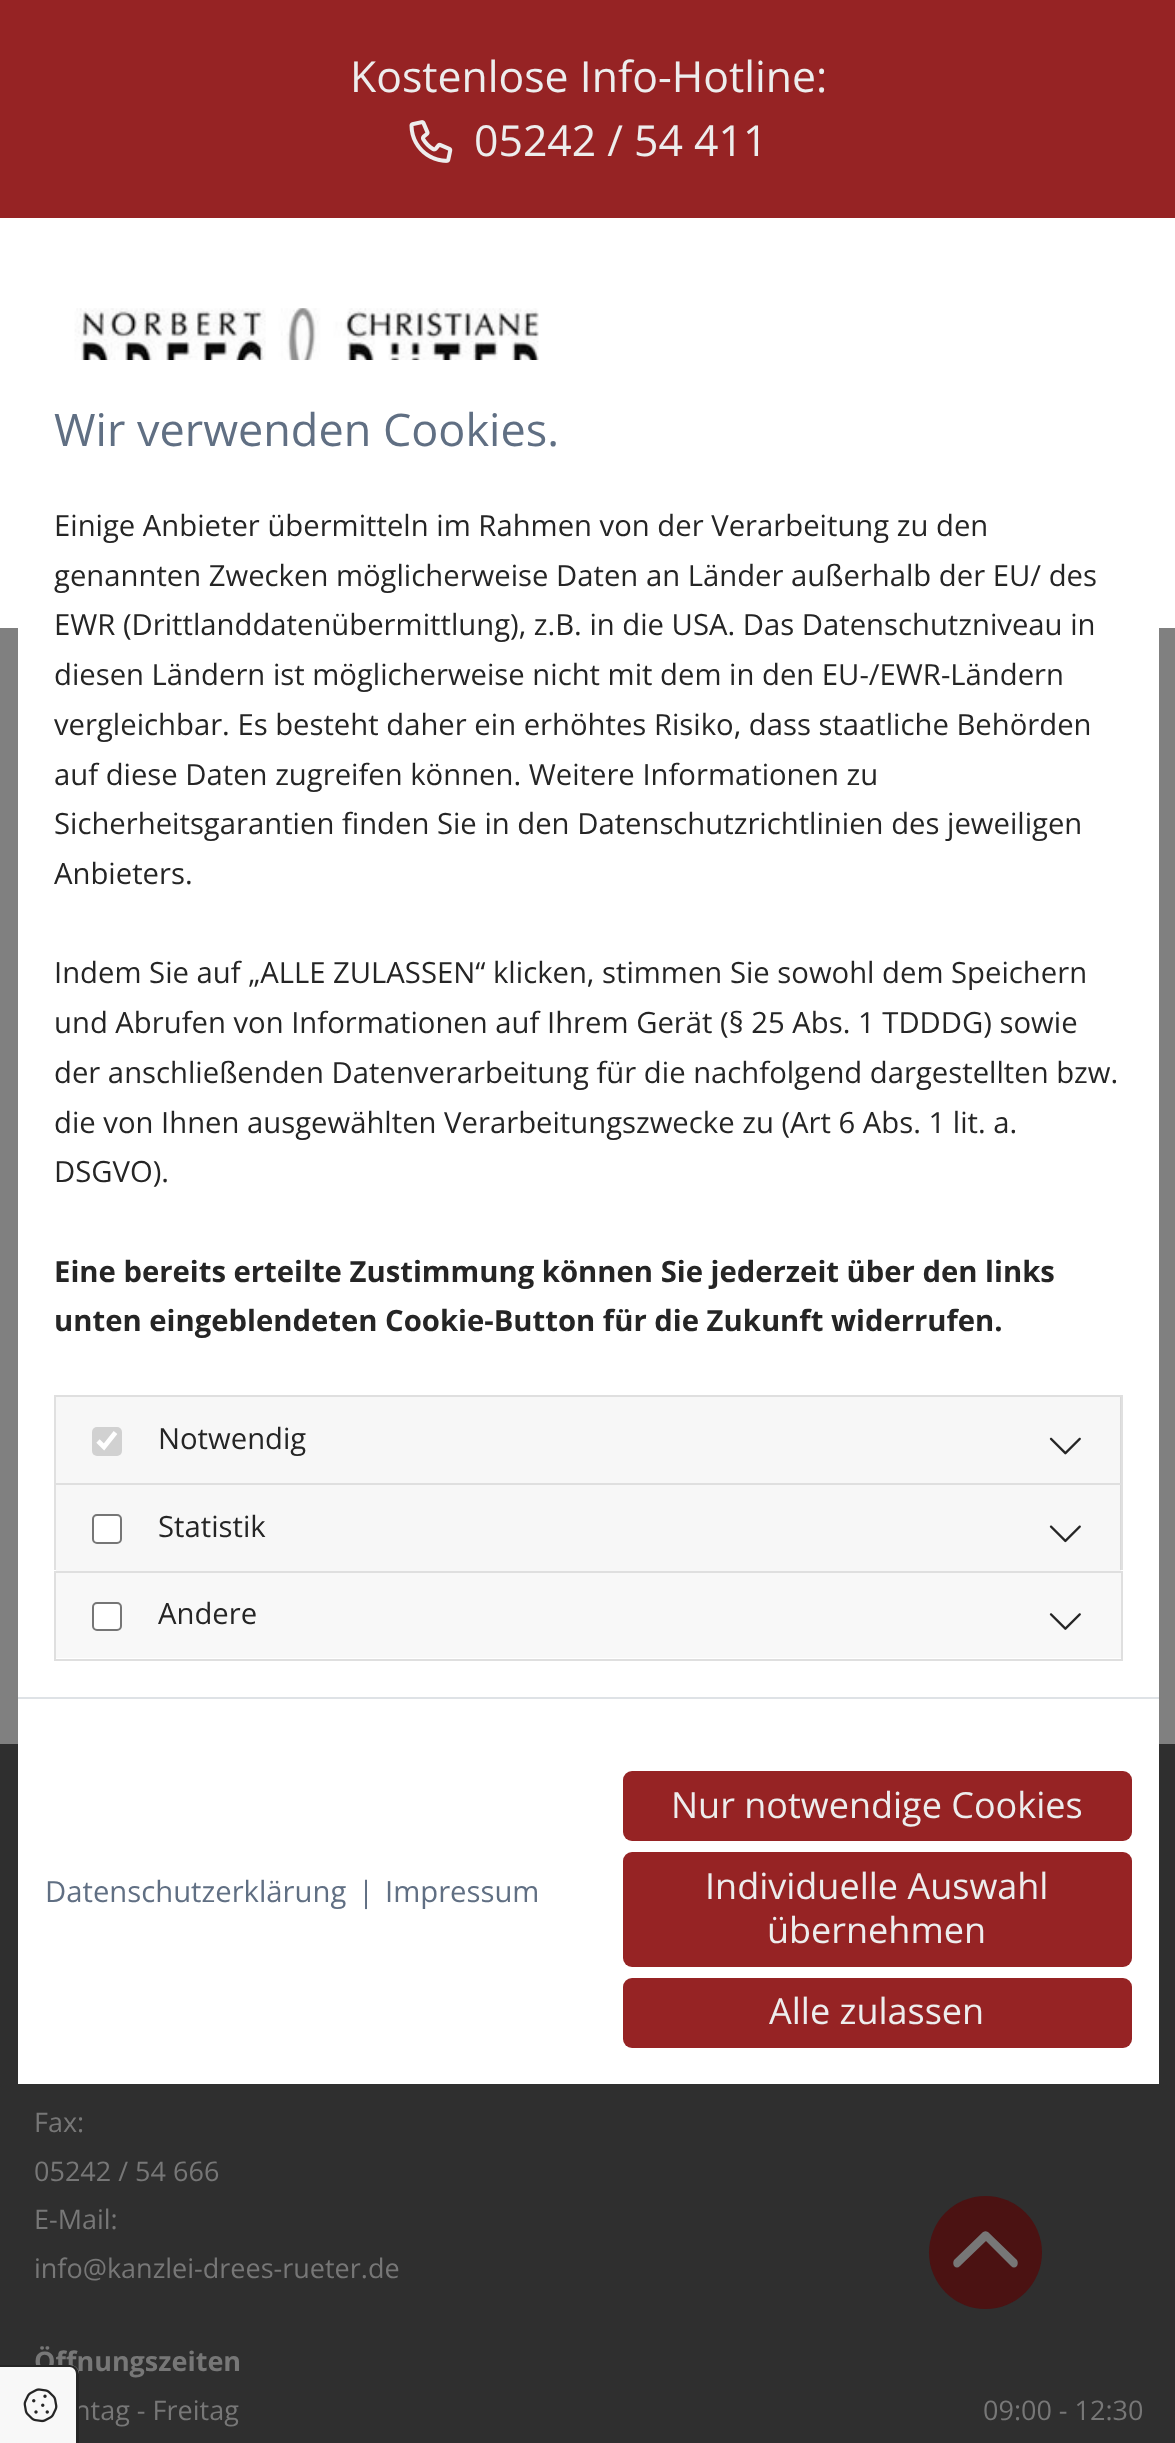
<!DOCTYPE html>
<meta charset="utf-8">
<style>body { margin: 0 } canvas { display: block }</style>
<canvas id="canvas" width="1175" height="2443"></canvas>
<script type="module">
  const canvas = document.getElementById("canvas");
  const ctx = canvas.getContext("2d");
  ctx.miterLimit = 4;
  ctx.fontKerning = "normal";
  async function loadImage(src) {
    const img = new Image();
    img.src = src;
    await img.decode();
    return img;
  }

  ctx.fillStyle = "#808080";
  ctx.fillRect(0, 0, 1175, 2443);
  ctx.fillStyle = "#962324";
  ctx.fillRect(0, 0, 1175, 218);
  ctx.font = "42.75px Open Sans";
  ctx.fillStyle = "#ededed";
  ctx.fillText("Kostenlose Info-Hotline:", 350, 92);
  ctx.drawImage(await loadImage("img1.png"), 409, 120, 44, 43);
  ctx.fillText("05242 / 54 411", 474, 156);
  ctx.fillStyle = "#ffffff";
  ctx.fillRect(0, 218, 1175, 410);
  ctx.drawImage(await loadImage("img2.png"), 33, 308, 557, 52);
  ctx.fillStyle = "#2f2f2f";
  ctx.fillRect(0, 1744, 1175, 699);
  ctx.font = "27px Open Sans";
  ctx.fillStyle = "#777777";
  ctx.fillText("Fax:", 34, 2132);
  ctx.fillText("05242 / 54 666", 34, 2181);
  ctx.fillText("E-Mail:", 34, 2229);
  ctx.fillText("info@kanzlei-drees-rueter.de", 34, 2278);
  ctx.font = "bold 27px Open Sans";
  ctx.fillText("Öffnungszeiten", 34, 2371);
  ctx.font = "27px Open Sans";
  ctx.fillText("ntag - Freitag", 74, 2420);
  ctx.fillText("09:00 - 12:30", 983, 2420);
  ctx.fillStyle = "#ffffff";
  ctx.fillRect(18, 628, 1141, 1456);
  ctx.font = "45px Open Sans";
  ctx.fillStyle = "#606f83";
  ctx.fillText("Wir verwenden Cookies.", 54, 446);
  ctx.font = "29.25px Open Sans";
  ctx.fillStyle = "#252525";
  ctx.fillText("Einige Anbieter übermitteln im Rahmen von der Verarbeitung zu den", 54, 536);
  ctx.fillText("genannten Zwecken möglicherweise Daten an Länder außerhalb der EU/ des", 54, 586);
  ctx.fillText("EWR (Drittlanddatenübermittlung), z.B. in die USA. Das Datenschutzniveau in", 54, 635);
  ctx.fillText("diesen Ländern ist möglicherweise nicht mit dem in den EU-/EWR-Ländern", 54, 685);
  ctx.fillText("vergleichbar. Es besteht daher ein erhöhtes Risiko, dass staatliche Behörden", 54, 735);
  ctx.fillText("auf diese Daten zugreifen können. Weitere Informationen zu", 54, 785);
  ctx.fillText("Sicherheitsgarantien finden Sie in den Datenschutzrichtlinien des jeweiligen", 54, 834);
  ctx.fillText("Anbieters.", 54, 884);
  ctx.fillText("Indem Sie auf „ALLE ZULASSEN“ klicken, stimmen Sie sowohl dem Speichern", 54, 983);
  ctx.fillText("und Abrufen von Informationen auf Ihrem Gerät (§ 25 Abs. 1 TDDDG) sowie", 54, 1033);
  ctx.fillText("der anschließenden Datenverarbeitung für die nachfolgend dargestellten bzw.", 54, 1083);
  ctx.fillText("die von Ihnen ausgewählten Verarbeitungszwecke zu (Art 6 Abs. 1 lit. a.", 54, 1133);
  ctx.fillText("DSGVO).", 54, 1182);
  ctx.font = "bold 29.25px Open Sans";
  ctx.fillText("Eine bereits erteilte Zustimmung können Sie jederzeit über den links", 54, 1282);
  ctx.fillText("unten eingeblendeten Cookie-Button für die Zukunft widerrufen.", 54, 1331);
  ctx.fillStyle = "#dfdfdf";
  ctx.beginPath();
  ctx.moveTo(54, 1395);
  ctx.lineTo(1123, 1395);
  ctx.lineTo(1120, 1397);
  ctx.lineTo(56, 1397);
  ctx.closePath();
  ctx.fill();
  ctx.fillStyle = "rgba(0, 0, 0, 0.12)";
  ctx.beginPath();
  ctx.moveTo(1123, 1395);
  ctx.lineTo(1123, 1483);
  ctx.lineTo(1120, 1483);
  ctx.lineTo(1120, 1397);
  ctx.closePath();
  ctx.fill();
  ctx.beginPath();
  ctx.moveTo(54, 1483);
  ctx.lineTo(54, 1395);
  ctx.lineTo(56, 1397);
  ctx.lineTo(56, 1483);
  ctx.closePath();
  ctx.fill();
  ctx.fillStyle = "rgba(0, 0, 0, 0.03)";
  ctx.fillRect(56, 1397, 1065, 86);
  ctx.fillStyle = "#d1d1d1";
  ctx.beginPath();
  ctx.roundRect(92, 1427, 30, 29, 5);
  ctx.fill();
  ctx.beginPath();
  ctx.moveTo(98, 1441);
  ctx.lineTo(104, 1447);
  ctx.lineTo(115.5, 1432.5);
  ctx.strokeStyle = "#ffffff";
  ctx.lineWidth = 4.7;
  ctx.stroke();
  ctx.font = "29.25px Open Sans";
  ctx.fillStyle = "#252525";
  ctx.fillText("Notwendig", 158, 1449);
  ctx.drawImage(await loadImage("img3.png"), 1049, 1437, 32, 18);
  ctx.fillStyle = "#dfdfdf";
  ctx.beginPath();
  ctx.moveTo(54, 1483);
  ctx.lineTo(1123, 1483);
  ctx.lineTo(1120, 1485);
  ctx.lineTo(56, 1485);
  ctx.closePath();
  ctx.fill();
  ctx.fillStyle = "rgba(0, 0, 0, 0.12)";
  ctx.beginPath();
  ctx.moveTo(1123, 1483);
  ctx.lineTo(1123, 1570);
  ctx.lineTo(1120, 1570);
  ctx.lineTo(1120, 1485);
  ctx.closePath();
  ctx.fill();
  ctx.beginPath();
  ctx.moveTo(54, 1570);
  ctx.lineTo(54, 1483);
  ctx.lineTo(56, 1485);
  ctx.lineTo(56, 1570);
  ctx.closePath();
  ctx.fill();
  ctx.fillStyle = "rgba(0, 0, 0, 0.03)";
  ctx.fillRect(56, 1485, 1065, 86);
  ctx.fillStyle = "#ffffff";
  ctx.beginPath();
  ctx.roundRect(93, 1515, 28, 28, 4);
  ctx.fill();
  ctx.strokeStyle = "#767676";
  ctx.lineWidth = 2;
  ctx.stroke();
  ctx.fillStyle = "#252525";
  ctx.fillText("Statistik", 158, 1537);
  ctx.drawImage(await loadImage("img4.png"), 1049, 1525, 32, 18);
  ctx.strokeStyle = "#dfdfdf";
  ctx.strokeRect(55, 1572, 1067, 88);
  ctx.fillStyle = "#f8f8f8";
  ctx.fillRect(56, 1573, 1065, 85);
  ctx.fillStyle = "#ffffff";
  ctx.beginPath();
  ctx.roundRect(93, 1603, 28, 27, 4);
  ctx.fill();
  ctx.strokeStyle = "#767676";
  ctx.stroke();
  ctx.fillStyle = "#252525";
  ctx.fillText("Andere", 158, 1624);
  ctx.drawImage(await loadImage("img5.png"), 1049, 1613, 32, 17);
  ctx.fillStyle = "#dee2e6";
  ctx.fillRect(18, 1697, 1141, 2);
  ctx.fillStyle = "#606f83";
  ctx.fillText("Datenschutzerklärung", 45, 1902);
  ctx.fillText("|", 358, 1902);
  ctx.fillText("Impressum", 385, 1902);
  ctx.fillStyle = "#962324";
  ctx.beginPath();
  ctx.roundRect(623, 1771, 509, 70, 9);
  ctx.fill();
  ctx.font = "36px Open Sans";
  ctx.fillStyle = "#ededed";
  ctx.fillText("Nur notwendige Cookies", 671, 1818);
  ctx.fillStyle = "#962324";
  ctx.beginPath();
  ctx.roundRect(623, 1852, 509, 115, 9);
  ctx.fill();
  ctx.fillStyle = "#ededed";
  ctx.fillText("Individuelle Auswahl", 705, 1899);
  ctx.fillText("übernehmen", 767, 1943);
  ctx.fillStyle = "#962324";
  ctx.beginPath();
  ctx.roundRect(623, 1978, 509, 70, 9);
  ctx.fill();
  ctx.fillStyle = "#ededed";
  ctx.fillText("Alle zulassen", 769, 2024);
  ctx.fillStyle = "#4b1212";
  ctx.beginPath();
  ctx.arc(985.5, 2252.5, 56.5, 0, Math.PI * 2);
  ctx.fill();
  ctx.fillStyle = "#777777";
  ctx.beginPath();
  ctx.moveTo(983, 2232);
  ctx.bezierCurveTo(985, 2231, 986, 2231, 988, 2232);
  ctx.lineTo(1017, 2260);
  ctx.bezierCurveTo(1018, 2262, 1018, 2264, 1017, 2266);
  ctx.bezierCurveTo(1015, 2268, 1013, 2268, 1011, 2266);
  ctx.lineTo(986, 2241);
  ctx.lineTo(960, 2266);
  ctx.bezierCurveTo(958, 2268, 956, 2268, 954, 2266);
  ctx.bezierCurveTo(953, 2264, 953, 2262, 954, 2260);
  ctx.closePath();
  ctx.fill();
  ctx.fillStyle = "#f8f8f8";
  ctx.beginPath();
  ctx.moveTo(0, 2365);
  ctx.lineTo(70, 2365);
  ctx.bezierCurveTo(75, 2365, 79, 2369, 79, 2374);
  ctx.lineTo(79, 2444);
  ctx.lineTo(0, 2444);
  ctx.closePath();
  ctx.fill();
  ctx.fillStyle = "#252525";
  ctx.beginPath();
  ctx.moveTo(0, 2365);
  ctx.lineTo(70, 2365);
  ctx.bezierCurveTo(75, 2365, 79, 2369, 79, 2374);
  ctx.lineTo(79, 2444);
  ctx.lineTo(0, 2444);
  ctx.closePath();
  ctx.moveTo(0, 2367);
  ctx.lineTo(70, 2367);
  ctx.bezierCurveTo(73, 2367, 76, 2370, 76, 2374);
  ctx.lineTo(76, 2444);
  ctx.lineTo(0, 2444);
  ctx.closePath();
  ctx.fill("evenodd");
  ctx.drawImage(await loadImage("img6.png"), 23, 2388, 35, 35);
</script>
